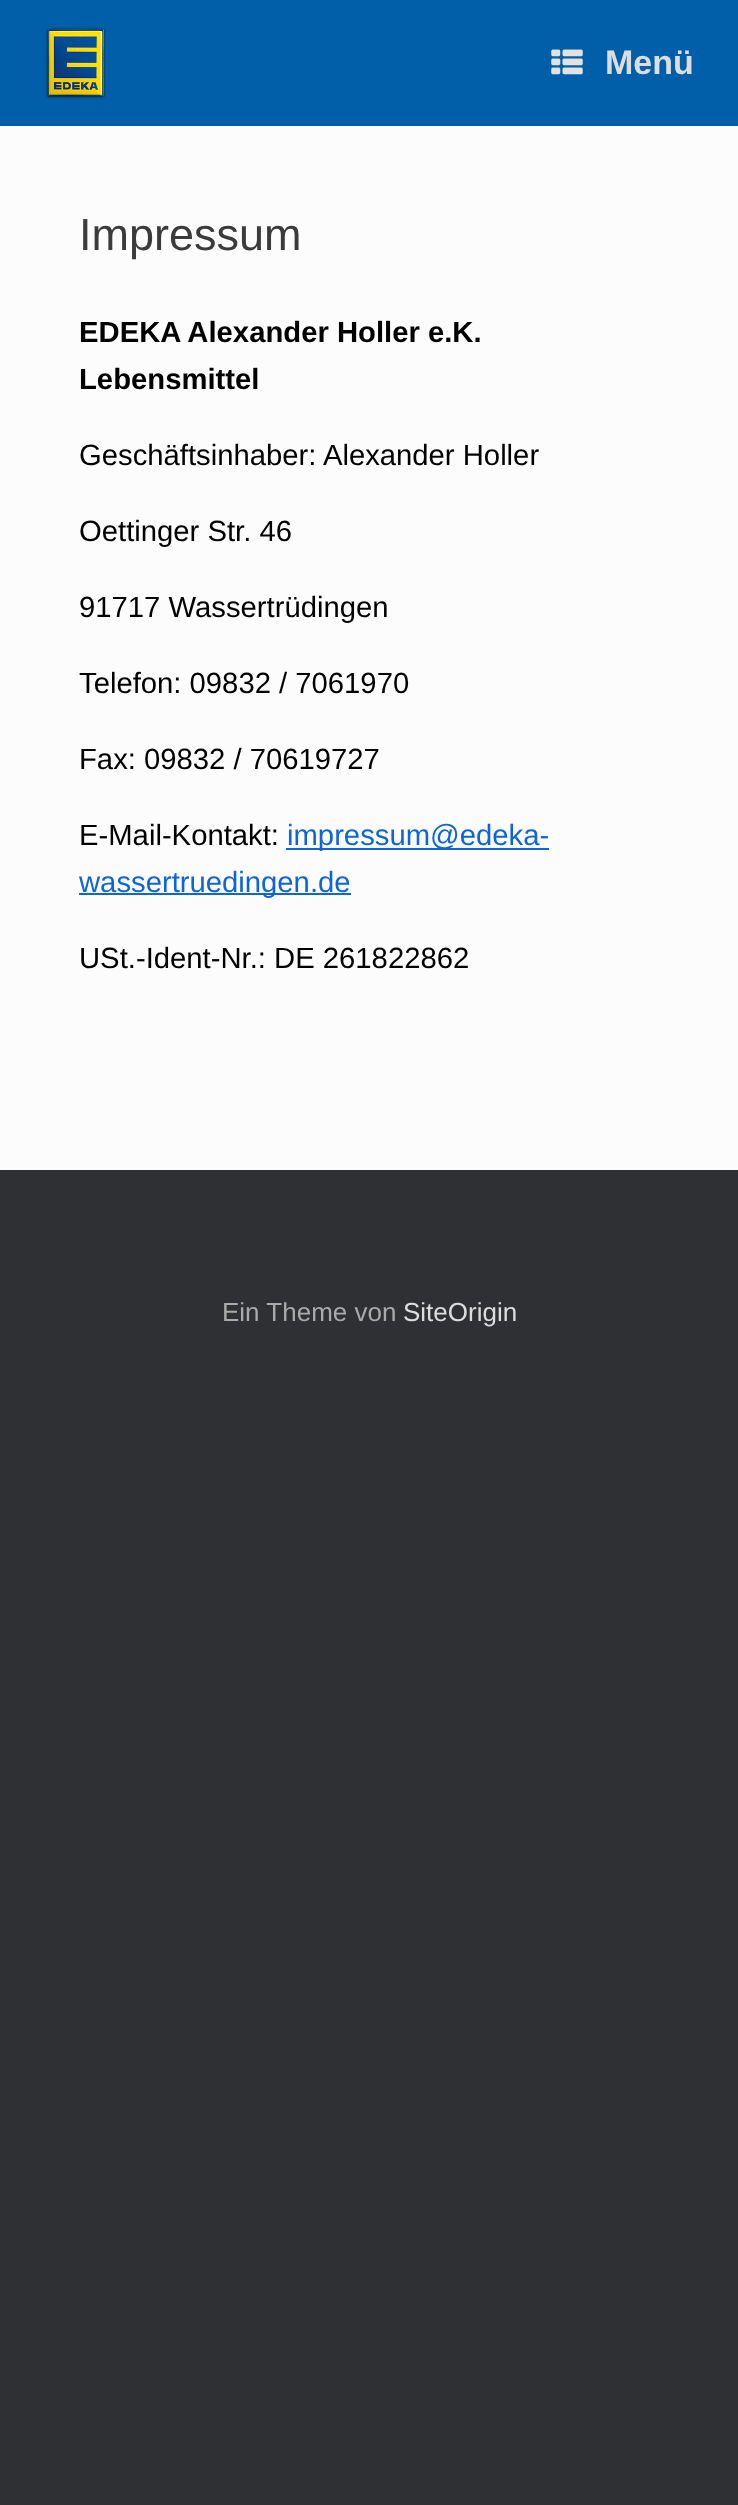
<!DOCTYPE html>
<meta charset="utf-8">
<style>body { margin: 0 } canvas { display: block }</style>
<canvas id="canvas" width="738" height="2505"></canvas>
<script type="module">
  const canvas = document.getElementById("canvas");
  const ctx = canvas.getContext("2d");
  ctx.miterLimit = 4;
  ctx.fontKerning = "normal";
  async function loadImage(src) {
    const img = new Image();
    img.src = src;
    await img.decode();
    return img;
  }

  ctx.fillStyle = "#2f3033";
  ctx.fillRect(0, 0, 738, 2505);
  ctx.fillStyle = "#005fa8";
  ctx.fillRect(0, 0, 738, 126);
  ctx.drawImage(await loadImage("img1.png"), 45, 27, 61, 72);
  ctx.drawImage(await loadImage("img2.png"), 551, 49, 32, 26);
  ctx.font = "bold 34px Liberation Sans";
  ctx.fillStyle = "#dddddd";
  ctx.fillText("Menü", 605, 74);
  ctx.fillStyle = "#fcfcfc";
  ctx.fillRect(0, 126, 738, 1044);
  ctx.font = "45px Liberation Sans";
  ctx.fillStyle = "#3b3b3b";
  ctx.fillText("Impressum", 79, 250);
  ctx.font = "bold 29.25px Liberation Sans";
  ctx.fillStyle = "#000000";
  ctx.fillText("EDEKA Alexander Holler e.K.", 79, 342);
  ctx.fillText("Lebensmittel", 79, 389);
  ctx.font = "29.25px Liberation Sans";
  ctx.fillText("Geschäftsinhaber: Alexander Holler", 79, 465);
  ctx.fillText("Oettinger Str. 46", 79, 541);
  ctx.fillText("91717 Wassertrüdingen", 79, 617);
  ctx.fillText("Telefon: 09832 / 7061970", 79, 693);
  ctx.fillText("Fax: 09832 / 70619727", 79, 769);
  ctx.fillText("E-Mail-Kontakt:", 79, 845);
  ctx.fillStyle = "#0d65d8";
  ctx.fillRect(286, 848, 263, 2);
  ctx.fillText("impressum@edeka-", 287, 845);
  ctx.fillRect(79, 893, 272, 2);
  ctx.fillText("wassertruedingen.de", 79, 892);
  ctx.fillStyle = "#000000";
  ctx.fillText("USt.-Ident-Nr.: DE 261822862", 79, 968);
  ctx.font = "26px Liberation Sans";
  ctx.fillStyle = "#aaaaaa";
  ctx.fillText("Ein Theme von", 222, 1321);
  ctx.fillStyle = "#dddddd";
  ctx.fillText("SiteOrigin", 403, 1321);
</script>
